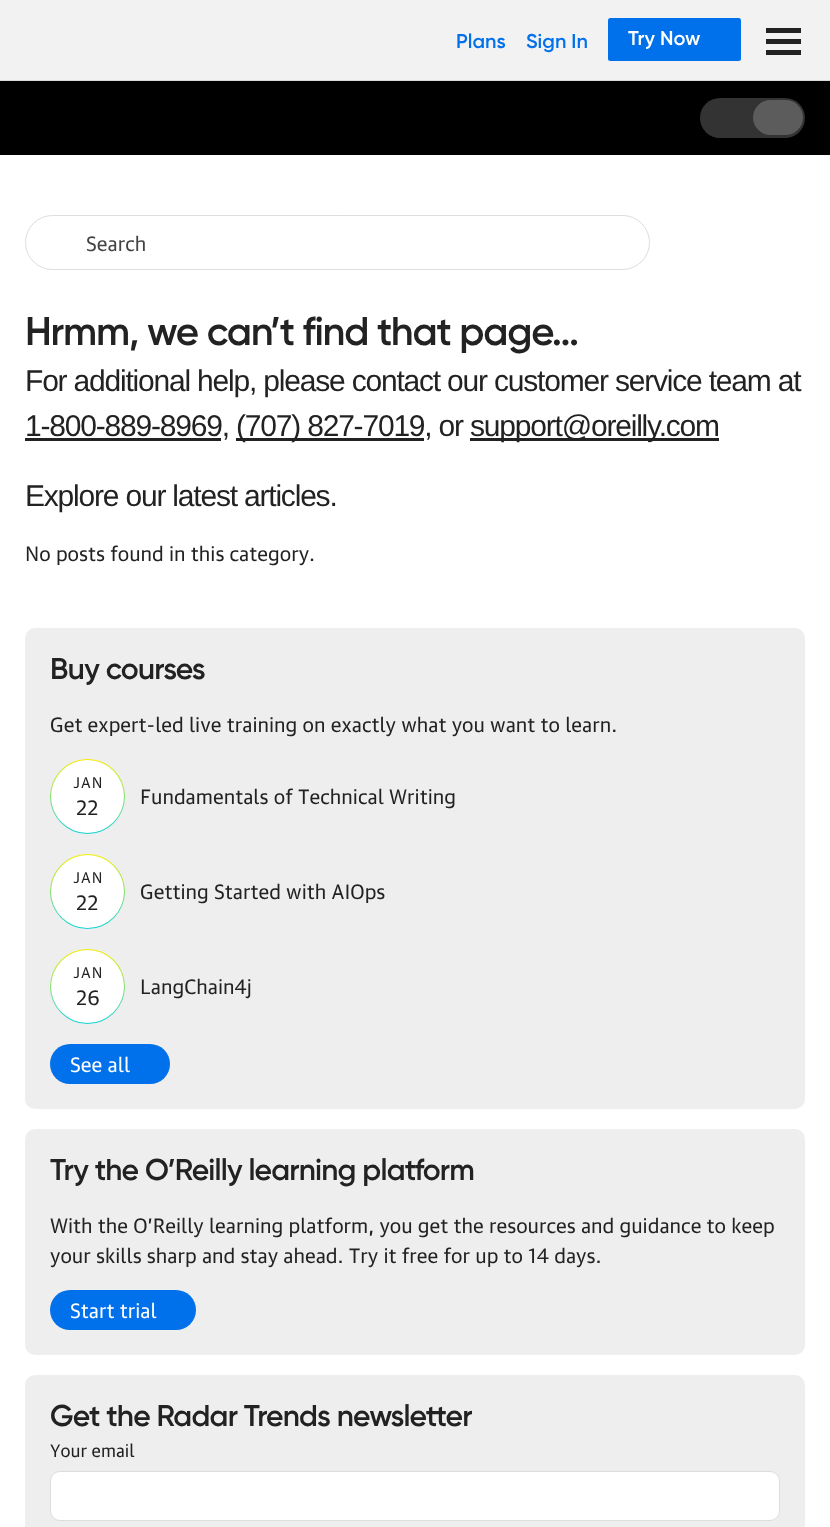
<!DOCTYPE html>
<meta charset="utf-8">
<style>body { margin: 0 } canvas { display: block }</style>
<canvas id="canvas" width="830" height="1527"></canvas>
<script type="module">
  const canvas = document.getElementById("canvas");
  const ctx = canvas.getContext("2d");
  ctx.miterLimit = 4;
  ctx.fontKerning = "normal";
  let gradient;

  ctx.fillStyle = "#ffffff";
  ctx.fillRect(0, 0, 830, 1527);
  ctx.fillStyle = "#f2f2f2";
  ctx.fillRect(0, 0, 830, 80);
  ctx.fillStyle = "#dadada";
  ctx.fillRect(0, 80, 830, 1);
  ctx.font = "20px gilroy";
  ctx.fillStyle = "#0071eb";
  ctx.fillText("Plans", 456, 48);
  ctx.fillText("Sign In", 526, 48);
  ctx.beginPath();
  ctx.roundRect(608, 18, 133, 43, 2.5);
  ctx.fill();
  ctx.fillStyle = "#ffffff";
  ctx.fillText("Try Now", 628, 45);
  ctx.fillStyle = "#222222";
  ctx.fillRect(766, 39, 35, 5);
  ctx.fillRect(766, 28, 35, 5);
  ctx.fillRect(766, 50, 35, 5);
  ctx.fillStyle = "#000000";
  ctx.fillRect(0, 81, 830, 74);
  ctx.fillStyle = "#333333";
  ctx.beginPath();
  ctx.roundRect(700, 98, 105, 40, 20);
  ctx.fill();
  ctx.fillStyle = "#5c5c5c";
  ctx.beginPath();
  ctx.roundRect(753, 100, 50, 35, 17.5);
  ctx.fill();
  ctx.beginPath();
  ctx.roundRect(25.5, 215.5, 624, 54, 27);
  ctx.strokeStyle = "#dddddd";
  ctx.stroke();
  ctx.font = "20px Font";
  ctx.fillStyle = "#434343";
  ctx.fillText("Search", 86, 251);
  ctx.letterSpacing = "-1.2px";
  ctx.font = "40px gilroy";
  ctx.fillStyle = "#222222";
  ctx.fillText("Hrmm, we can’t find that page…", 25, 345);
  ctx.font = "30px Liberation Sans";
  ctx.fillText("For additional help, please contact our customer service team at", 25, 391);
  ctx.fillRect(25, 438, 196, 3);
  ctx.fillText("1-800-889-8969,", 25, 436);
  ctx.fillRect(236, 438, 188, 3);
  ctx.fillText("(707) 827-7019, or", 236, 436);
  ctx.fillRect(470, 438, 249, 3);
  ctx.fillText("support@oreilly.com", 470, 436);
  ctx.fillText("Explore our latest articles.", 25, 506);
  ctx.letterSpacing = "0px";
  ctx.font = "20px Font";
  ctx.fillText("No posts found in this category.", 25, 561);
  ctx.fillStyle = "#eeeeee";
  ctx.beginPath();
  ctx.roundRect(25, 628, 780, 481, 10);
  ctx.fill();
  ctx.letterSpacing = "-0.8px";
  ctx.font = "30px gilroy";
  ctx.fillStyle = "#222222";
  ctx.fillText("Buy courses", 50, 679);
  ctx.letterSpacing = "0px";
  ctx.font = "20px Font";
  ctx.fillText("Get expert-led live training on exactly what you want to learn.", 50, 732);
  gradient = ctx.createLinearGradient(88, 759, 88, 834);
  gradient.addColorStop(0, "#f7ed01");
  gradient.addColorStop(1, "#14d4d8");
  ctx.fillStyle = gradient;
  ctx.beginPath();
  ctx.arc(87.5, 796.5, 37.5, 0, Math.PI * 2);
  ctx.fill();
  ctx.fillStyle = "#ffffff";
  ctx.beginPath();
  ctx.arc(87.5, 796.5, 36.5, 0, Math.PI * 2);
  ctx.fill();
  ctx.letterSpacing = "1px";
  ctx.font = "15px Font";
  ctx.fillStyle = "#222222";
  ctx.fillText("JAN", 73, 788);
  ctx.letterSpacing = "0px";
  ctx.font = "20px Font";
  ctx.fillText("22", 76, 815);
  ctx.fillText("Fundamentals of Technical Writing", 140, 804);
  gradient = ctx.createLinearGradient(88, 854, 88, 929);
  gradient.addColorStop(0, "#f7ed01");
  gradient.addColorStop(1, "#14d4d8");
  ctx.fillStyle = gradient;
  ctx.beginPath();
  ctx.arc(87.5, 891.5, 37.5, 0, Math.PI * 2);
  ctx.fill();
  ctx.fillStyle = "#ffffff";
  ctx.beginPath();
  ctx.arc(87.5, 891.5, 36.5, 0, Math.PI * 2);
  ctx.fill();
  ctx.letterSpacing = "1px";
  ctx.font = "15px Font";
  ctx.fillStyle = "#222222";
  ctx.fillText("JAN", 73, 883);
  ctx.letterSpacing = "0px";
  ctx.font = "20px Font";
  ctx.fillText("22", 76, 910);
  ctx.fillText("Getting Started with AIOps", 140, 899);
  gradient = ctx.createLinearGradient(88, 949, 88, 1024);
  gradient.addColorStop(0, "#f7ed01");
  gradient.addColorStop(1, "#14d4d8");
  ctx.fillStyle = gradient;
  ctx.beginPath();
  ctx.arc(87.5, 986.5, 37.5, 0, Math.PI * 2);
  ctx.fill();
  ctx.fillStyle = "#ffffff";
  ctx.beginPath();
  ctx.arc(87.5, 986.5, 36.5, 0, Math.PI * 2);
  ctx.fill();
  ctx.letterSpacing = "1px";
  ctx.font = "15px Font";
  ctx.fillStyle = "#222222";
  ctx.fillText("JAN", 73, 978);
  ctx.letterSpacing = "0px";
  ctx.font = "20px Font";
  ctx.fillText("26", 76, 1005);
  ctx.fillText("LangChain4j", 140, 994);
  ctx.fillStyle = "#0071eb";
  ctx.beginPath();
  ctx.roundRect(50, 1044, 120, 40, 20);
  ctx.fill();
  ctx.fillStyle = "#ffffff";
  ctx.fillText("See all", 70, 1072);
  ctx.fillStyle = "#eeeeee";
  ctx.beginPath();
  ctx.roundRect(25, 1129, 780, 226, 10);
  ctx.fill();
  ctx.letterSpacing = "-0.8px";
  ctx.font = "30px gilroy";
  ctx.fillStyle = "#222222";
  ctx.fillText("Try the O’Reilly learning platform", 50, 1180);
  ctx.letterSpacing = "0px";
  ctx.font = "20px Font";
  ctx.fillText("With the O’Reilly learning platform, you get the resources and guidance to keep", 50, 1233);
  ctx.fillText("your skills sharp and stay ahead. Try it free for up to 14 days.", 50, 1263);
  ctx.fillStyle = "#0071eb";
  ctx.beginPath();
  ctx.roundRect(50, 1290, 146, 40, 20);
  ctx.fill();
  ctx.fillStyle = "#ffffff";
  ctx.fillText("Start trial", 70, 1318);
  ctx.fillStyle = "#eeeeee";
  ctx.beginPath();
  ctx.roundRect(25, 1375, 780, 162, 10);
  ctx.fill();
  ctx.letterSpacing = "-0.8px";
  ctx.font = "30px gilroy";
  ctx.fillStyle = "#222222";
  ctx.fillText("Get the Radar Trends newsletter", 50, 1426);
  ctx.letterSpacing = "0px";
  ctx.font = "17.5px Font";
  ctx.fillText("Your email", 50, 1457);
  ctx.fillStyle = "#ffffff";
  ctx.beginPath();
  ctx.roundRect(50.5, 1471.5, 729, 49, 9.5);
  ctx.fill();
  ctx.stroke();
</script>
